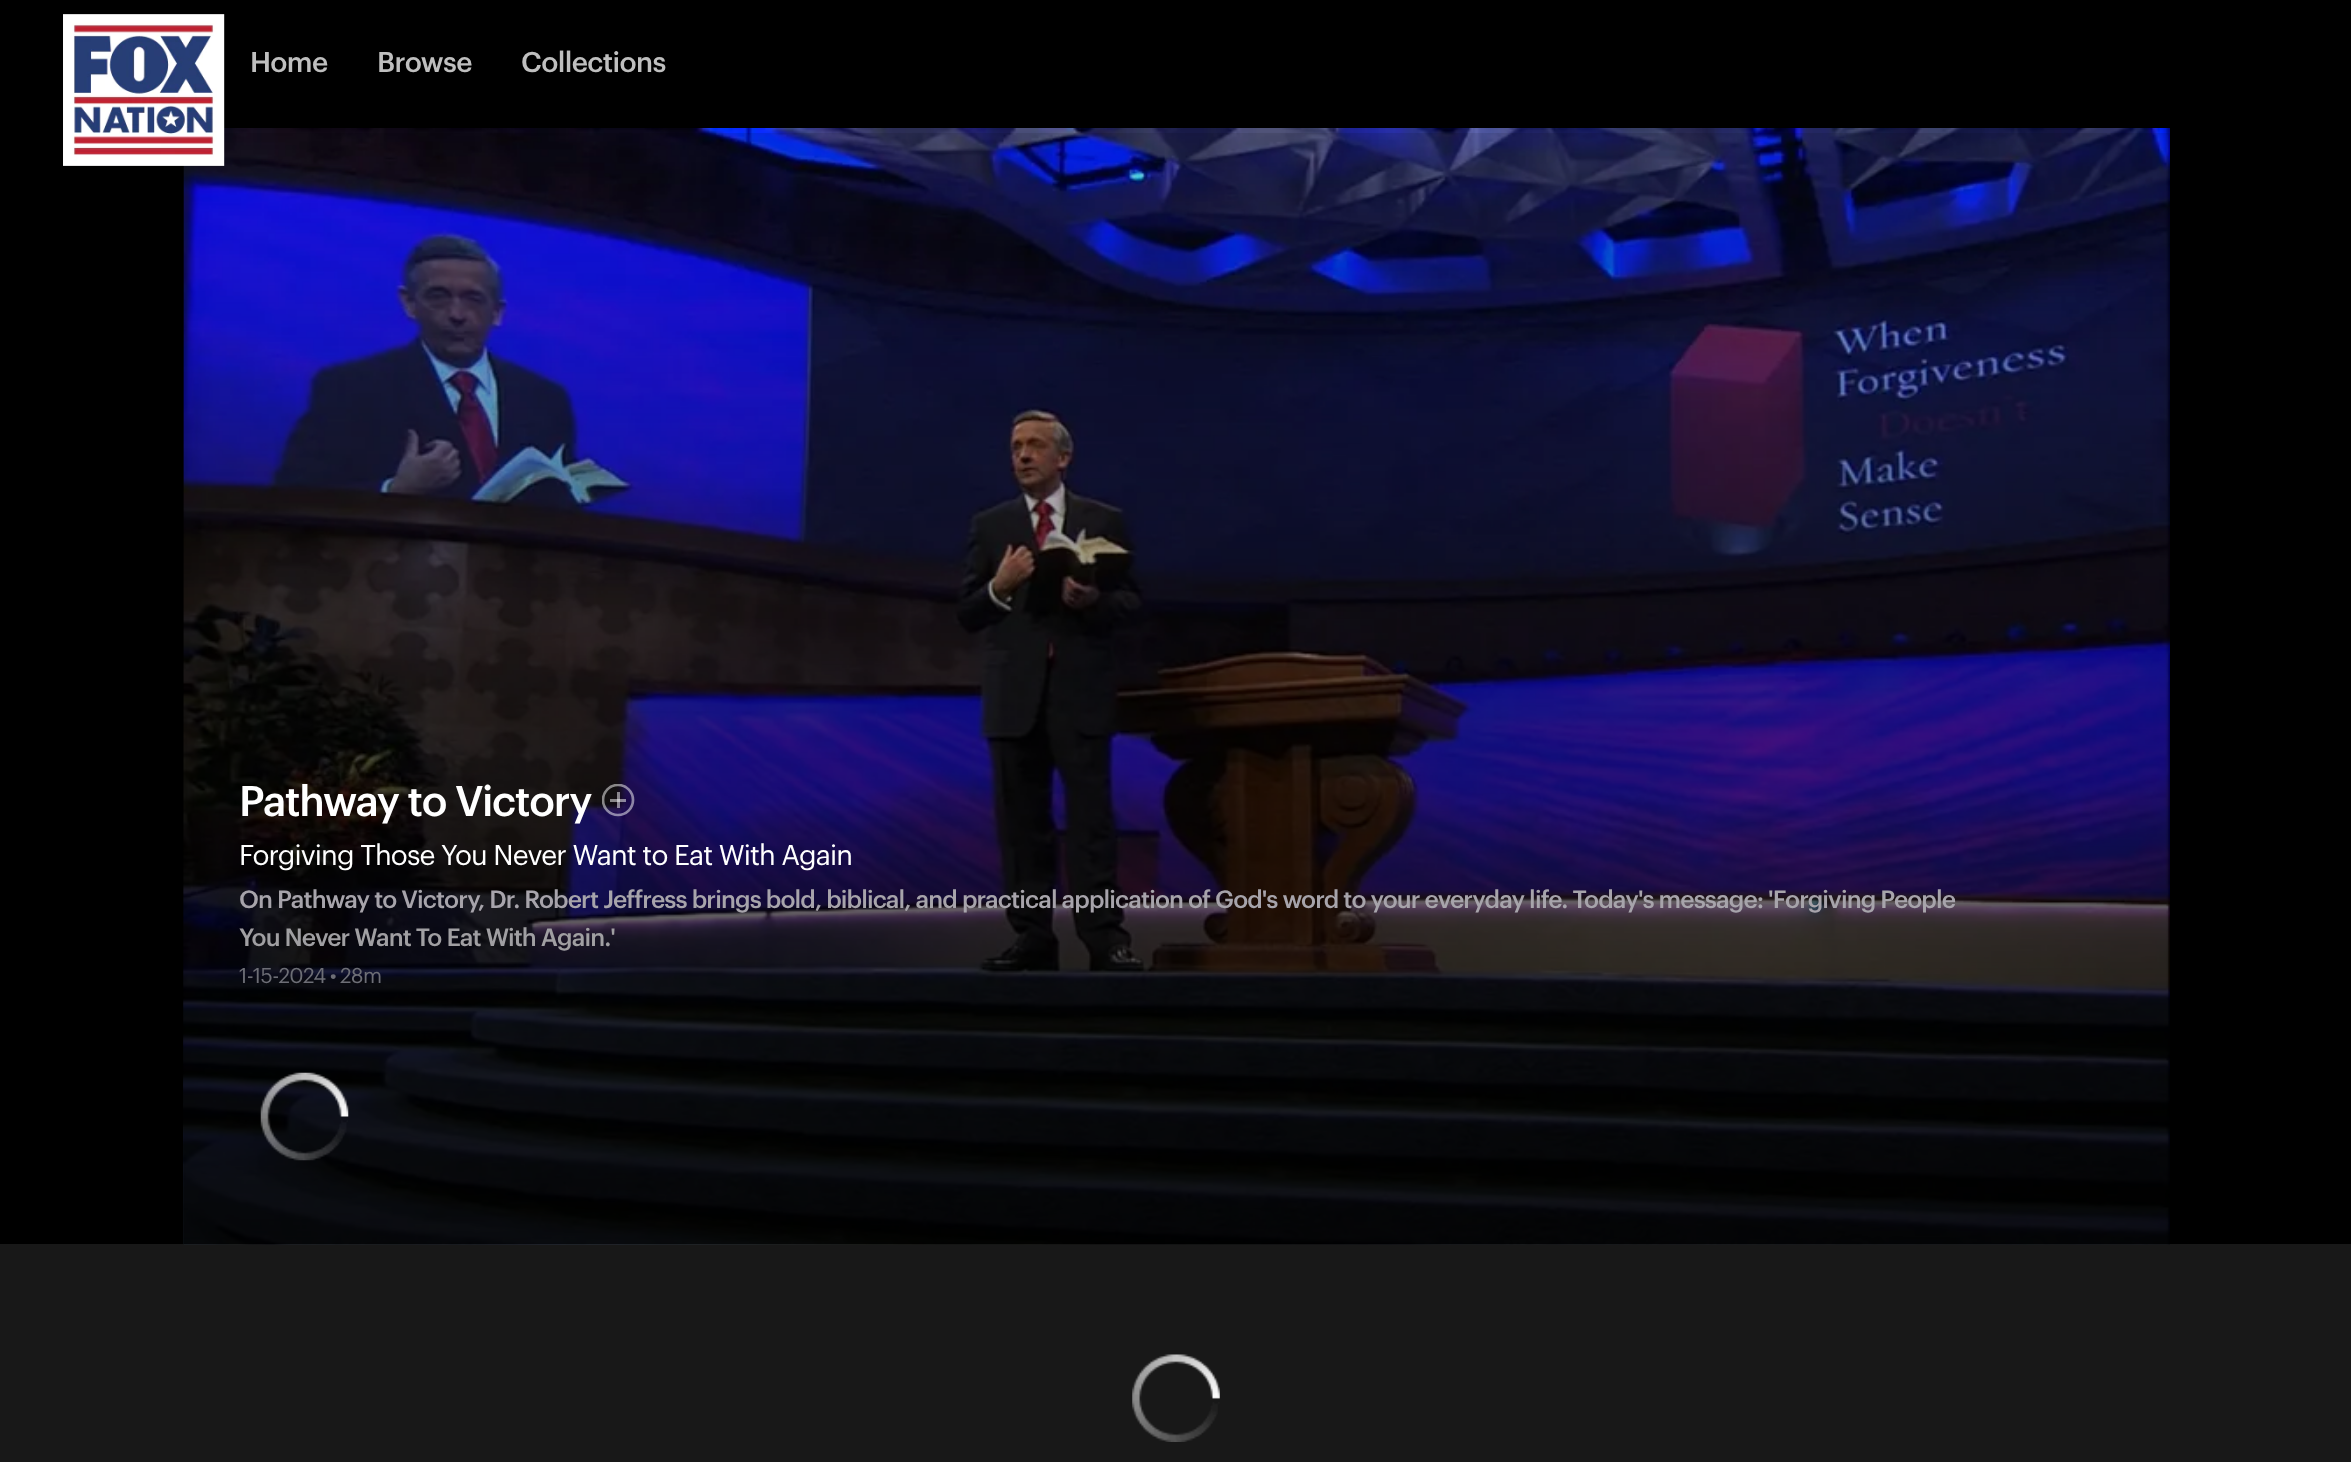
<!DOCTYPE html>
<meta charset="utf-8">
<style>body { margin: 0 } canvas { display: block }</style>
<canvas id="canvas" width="2351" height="1462"></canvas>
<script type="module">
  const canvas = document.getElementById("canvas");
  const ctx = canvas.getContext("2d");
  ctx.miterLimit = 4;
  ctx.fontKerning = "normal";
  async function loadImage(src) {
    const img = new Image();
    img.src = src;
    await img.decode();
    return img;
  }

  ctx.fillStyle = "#181818";
  ctx.fillRect(0, 0, 2351, 1462);
  ctx.fillStyle = "#000000";
  ctx.fillRect(0, 0, 2351, 1244);
  ctx.drawImage(await loadImage("img2.png"), 183, 128, 1987, 1117);
  ctx.drawImage(await loadImage("img1.png"), 63, 14, 162, 152);
  ctx.letterSpacing = "-0.6px";
  ctx.font = "500 28px Graphik";
  ctx.fillStyle = "#bfbfbf";
  ctx.fillText("Home", 250, 72);
  ctx.fillText("Browse", 377, 72);
  ctx.fillText("Collections", 521, 72);
  ctx.drawImage(await loadImage("img3.png"), 260, 1072, 89, 89);
  ctx.letterSpacing = "-1.25px";
  ctx.font = "500 42px Graphik";
  ctx.fillStyle = "#ffffff";
  ctx.fillText("Pathway to Victory", 239, 816);
  ctx.save();
  ctx.beginPath();
  ctx.rect(602, 784, 35, 35);
  ctx.clip();
  ctx.beginPath();
  ctx.arc(618, 800, 15, 0, Math.PI * 2);
  ctx.strokeStyle = "rgba(255, 255, 255, 0.5)";
  ctx.lineWidth = 2.7;
  ctx.stroke();
  ctx.restore();
  ctx.fillStyle = "rgba(255, 255, 255, 0.5)";
  ctx.fillRect(617, 792, 3, 16);
  ctx.fillRect(610, 799, 16, 3);
  ctx.letterSpacing = "-0.88px";
  ctx.font = "28px Graphik";
  ctx.fillStyle = "#ffffff";
  ctx.fillText("Forgiving Those You Never Want to Eat With Again", 239, 865);
  ctx.font = "500 24.5px Graphik";
  ctx.fillStyle = "#a7a4ab";
  ctx.fillText("On Pathway to Victory, Dr. Robert Jeffress brings bold, biblical, and practical application of God's word to your everyday life. Today's message: 'Forgiving People", 239, 908);
  ctx.fillStyle = "#a09fa2";
  ctx.fillText("You Never Want To Eat With Again.'", 239, 946);
  ctx.letterSpacing = "-0.6px";
  ctx.wordSpacing = "-1px";
  ctx.font = "21px Graphik";
  ctx.fillStyle = "#6d6e76";
  ctx.fillText("1-15-2024 • 28m", 239, 983);
  ctx.drawImage(await loadImage("img4.png"), 1132, 1354, 88, 88);
</script>
